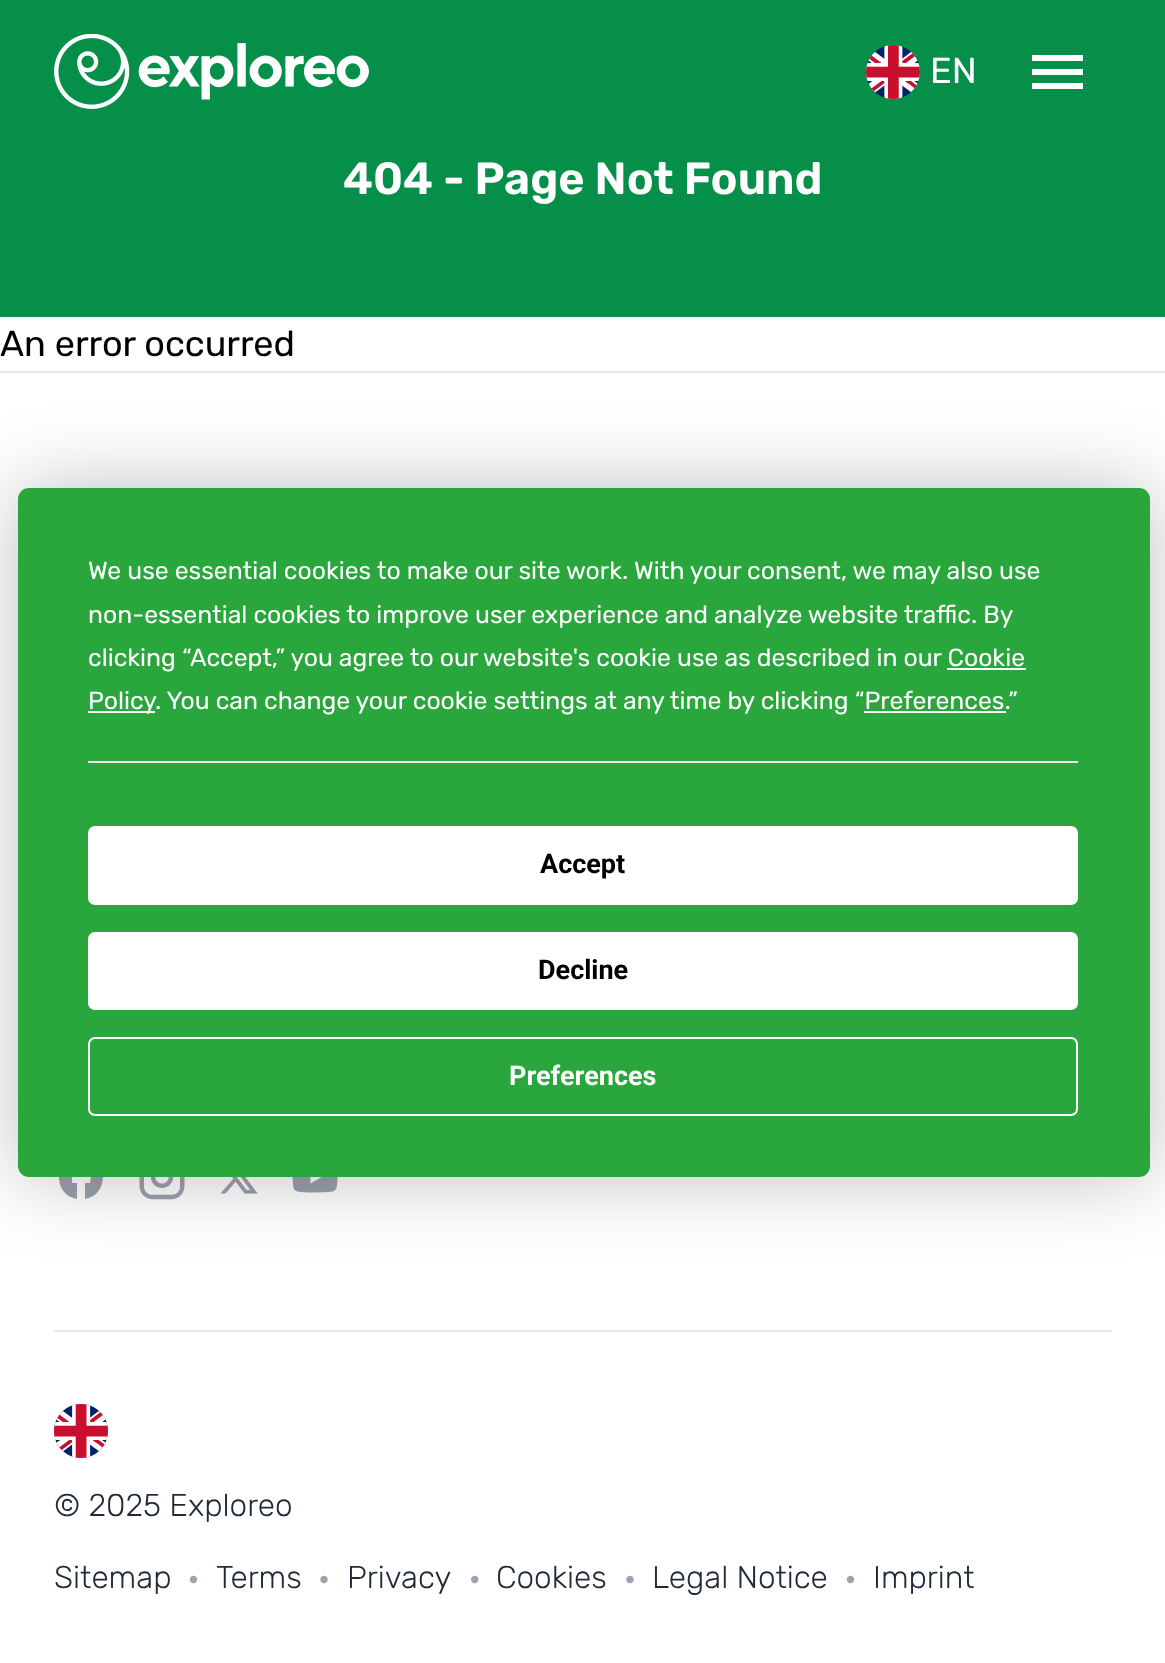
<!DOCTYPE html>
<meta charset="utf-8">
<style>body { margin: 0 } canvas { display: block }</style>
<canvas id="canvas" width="1165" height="1663"></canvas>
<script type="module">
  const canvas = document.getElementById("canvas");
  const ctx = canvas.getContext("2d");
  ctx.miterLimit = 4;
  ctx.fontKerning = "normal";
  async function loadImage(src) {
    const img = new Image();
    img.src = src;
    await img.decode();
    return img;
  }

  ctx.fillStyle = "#ffffff";
  ctx.fillRect(0, 0, 1165, 1663);
  ctx.fillStyle = "#068f48";
  ctx.fillRect(0, 0, 1165, 317);
  ctx.drawImage(await loadImage("img1.png"), 54, 34, 315, 75);
  ctx.drawImage(await loadImage("img2.png"), 866, 45, 54, 54);
  ctx.font = "36px Rubik";
  ctx.fillStyle = "#ffffff";
  ctx.fillText("EN", 930, 83);
  ctx.beginPath();
  ctx.moveTo(1032, 89);
  ctx.lineTo(1032, 83);
  ctx.lineTo(1083, 83);
  ctx.lineTo(1083, 89);
  ctx.closePath();
  ctx.moveTo(1032, 75);
  ctx.lineTo(1032, 69);
  ctx.lineTo(1083, 69);
  ctx.lineTo(1083, 75);
  ctx.closePath();
  ctx.moveTo(1032, 61);
  ctx.lineTo(1032, 55);
  ctx.lineTo(1083, 55);
  ctx.lineTo(1083, 61);
  ctx.closePath();
  ctx.fill();
  ctx.font = "600 45px Rubik";
  ctx.fillText("404 - Page Not Found", 343, 194);
  ctx.font = "36px Rubik";
  ctx.fillStyle = "#000000";
  ctx.fillText("An error occurred", 0, 356);
  ctx.fillStyle = "#e5e7eb";
  ctx.fillRect(0, 371, 1165, 2);
  ctx.fillStyle = "#9ca3af";
  ctx.beginPath();
  ctx.moveTo(81, 1154);
  ctx.bezierCurveTo(54, 1154, 51, 1195, 77, 1199);
  ctx.lineTo(77, 1183);
  ctx.lineTo(72, 1183);
  ctx.lineTo(72, 1177);
  ctx.lineTo(77, 1177);
  ctx.bezierCurveTo(77, 1166, 79, 1162, 91, 1164);
  ctx.lineTo(91, 1169);
  ctx.bezierCurveTo(84, 1169, 85, 1171, 85, 1177);
  ctx.lineTo(91, 1177);
  ctx.lineTo(90, 1183);
  ctx.lineTo(85, 1183);
  ctx.lineTo(85, 1199);
  ctx.bezierCurveTo(111, 1195, 108, 1154, 81, 1154);
  ctx.fill();
  ctx.drawImage(await loadImage("img3.png"), 139, 1177, 46, 23);
  ctx.drawImage(await loadImage("img4.png"), 220, 1177, 38, 17);
  ctx.drawImage(await loadImage("img5.png"), 292, 1177, 46, 16);
  ctx.fillStyle = "#e5e7eb";
  ctx.fillRect(54, 1330, 1058, 2);
  ctx.drawImage(await loadImage("img6.png"), 54, 1404, 54, 54);
  ctx.font = "300 31.5px Rubik";
  ctx.fillStyle = "#1f2937";
  ctx.fillText("© 2025 Exploreo", 54, 1516);
  ctx.fillText("Sitemap", 54, 1588);
  ctx.drawImage(await loadImage("img7.png"), 189, 1575, 9, 9);
  ctx.fillText("Terms", 216, 1588);
  ctx.drawImage(await loadImage("img8.png"), 320, 1575, 8, 9);
  ctx.fillText("Privacy", 347, 1588);
  ctx.drawImage(await loadImage("img9.png"), 471, 1575, 8, 9);
  ctx.fillText("Cookies", 496, 1588);
  ctx.drawImage(await loadImage("img8.png"), 626, 1575, 8, 9);
  ctx.fillText("Legal Notice", 652, 1588);
  ctx.drawImage(await loadImage("img7.png"), 846, 1575, 9, 9);
  ctx.fillText("Imprint", 873, 1588);
  ctx.fillStyle = "rgba(0, 0, 0, 0.25)";
  ctx.filter = "blur(39.5px)";
  ctx.beginPath();
  ctx.roundRect(18, 488, 1132, 689, 11);
  ctx.fill();
  ctx.filter = "none";
  ctx.fillStyle = "#29a63c";
  ctx.beginPath();
  ctx.roundRect(18, 488, 1132, 689, 11);
  ctx.fill();
  ctx.font = "24.75px Rubik";
  ctx.fillStyle = "#ffffff";
  ctx.fillText("We use essential cookies to make our site work. With your consent, we may also use", 88, 579);
  ctx.fillText("non-essential cookies to improve user experience and analyze website traffic. By", 88, 623);
  ctx.fillText("clicking “Accept,” you agree to our website's cookie use as described in our Cookie", 88, 666);
  ctx.fillRect(88, 711, 67, 2);
  ctx.fillText("Policy", 88, 709);
  ctx.fillRect(947, 668, 79, 2);
  ctx.fillText(". You can change your cookie settings at any time by clicking “Preferences.”", 155, 709);
  ctx.fillRect(864, 711, 142, 2);
  ctx.fillStyle = "#ededef";
  ctx.fillRect(88, 761, 990, 2);
  ctx.fillStyle = "#ffffff";
  ctx.beginPath();
  ctx.roundRect(89, 827, 988, 77, 6);
  ctx.fill();
  ctx.strokeStyle = "#ffffff";
  ctx.lineWidth = 2;
  ctx.stroke();
  ctx.font = "bold 27px Roboto";
  ctx.fillStyle = "#000000";
  ctx.fillText("Accept", 540, 873);
  ctx.fillStyle = "#ffffff";
  ctx.beginPath();
  ctx.roundRect(89, 933, 988, 76, 6);
  ctx.fill();
  ctx.stroke();
  ctx.fillStyle = "#000000";
  ctx.fillText("Decline", 538, 979);
  ctx.beginPath();
  ctx.roundRect(89, 1038, 988, 77, 6);
  ctx.stroke();
  ctx.fillStyle = "#ffffff";
  ctx.fillText("Preferences", 509, 1085);
</script>
